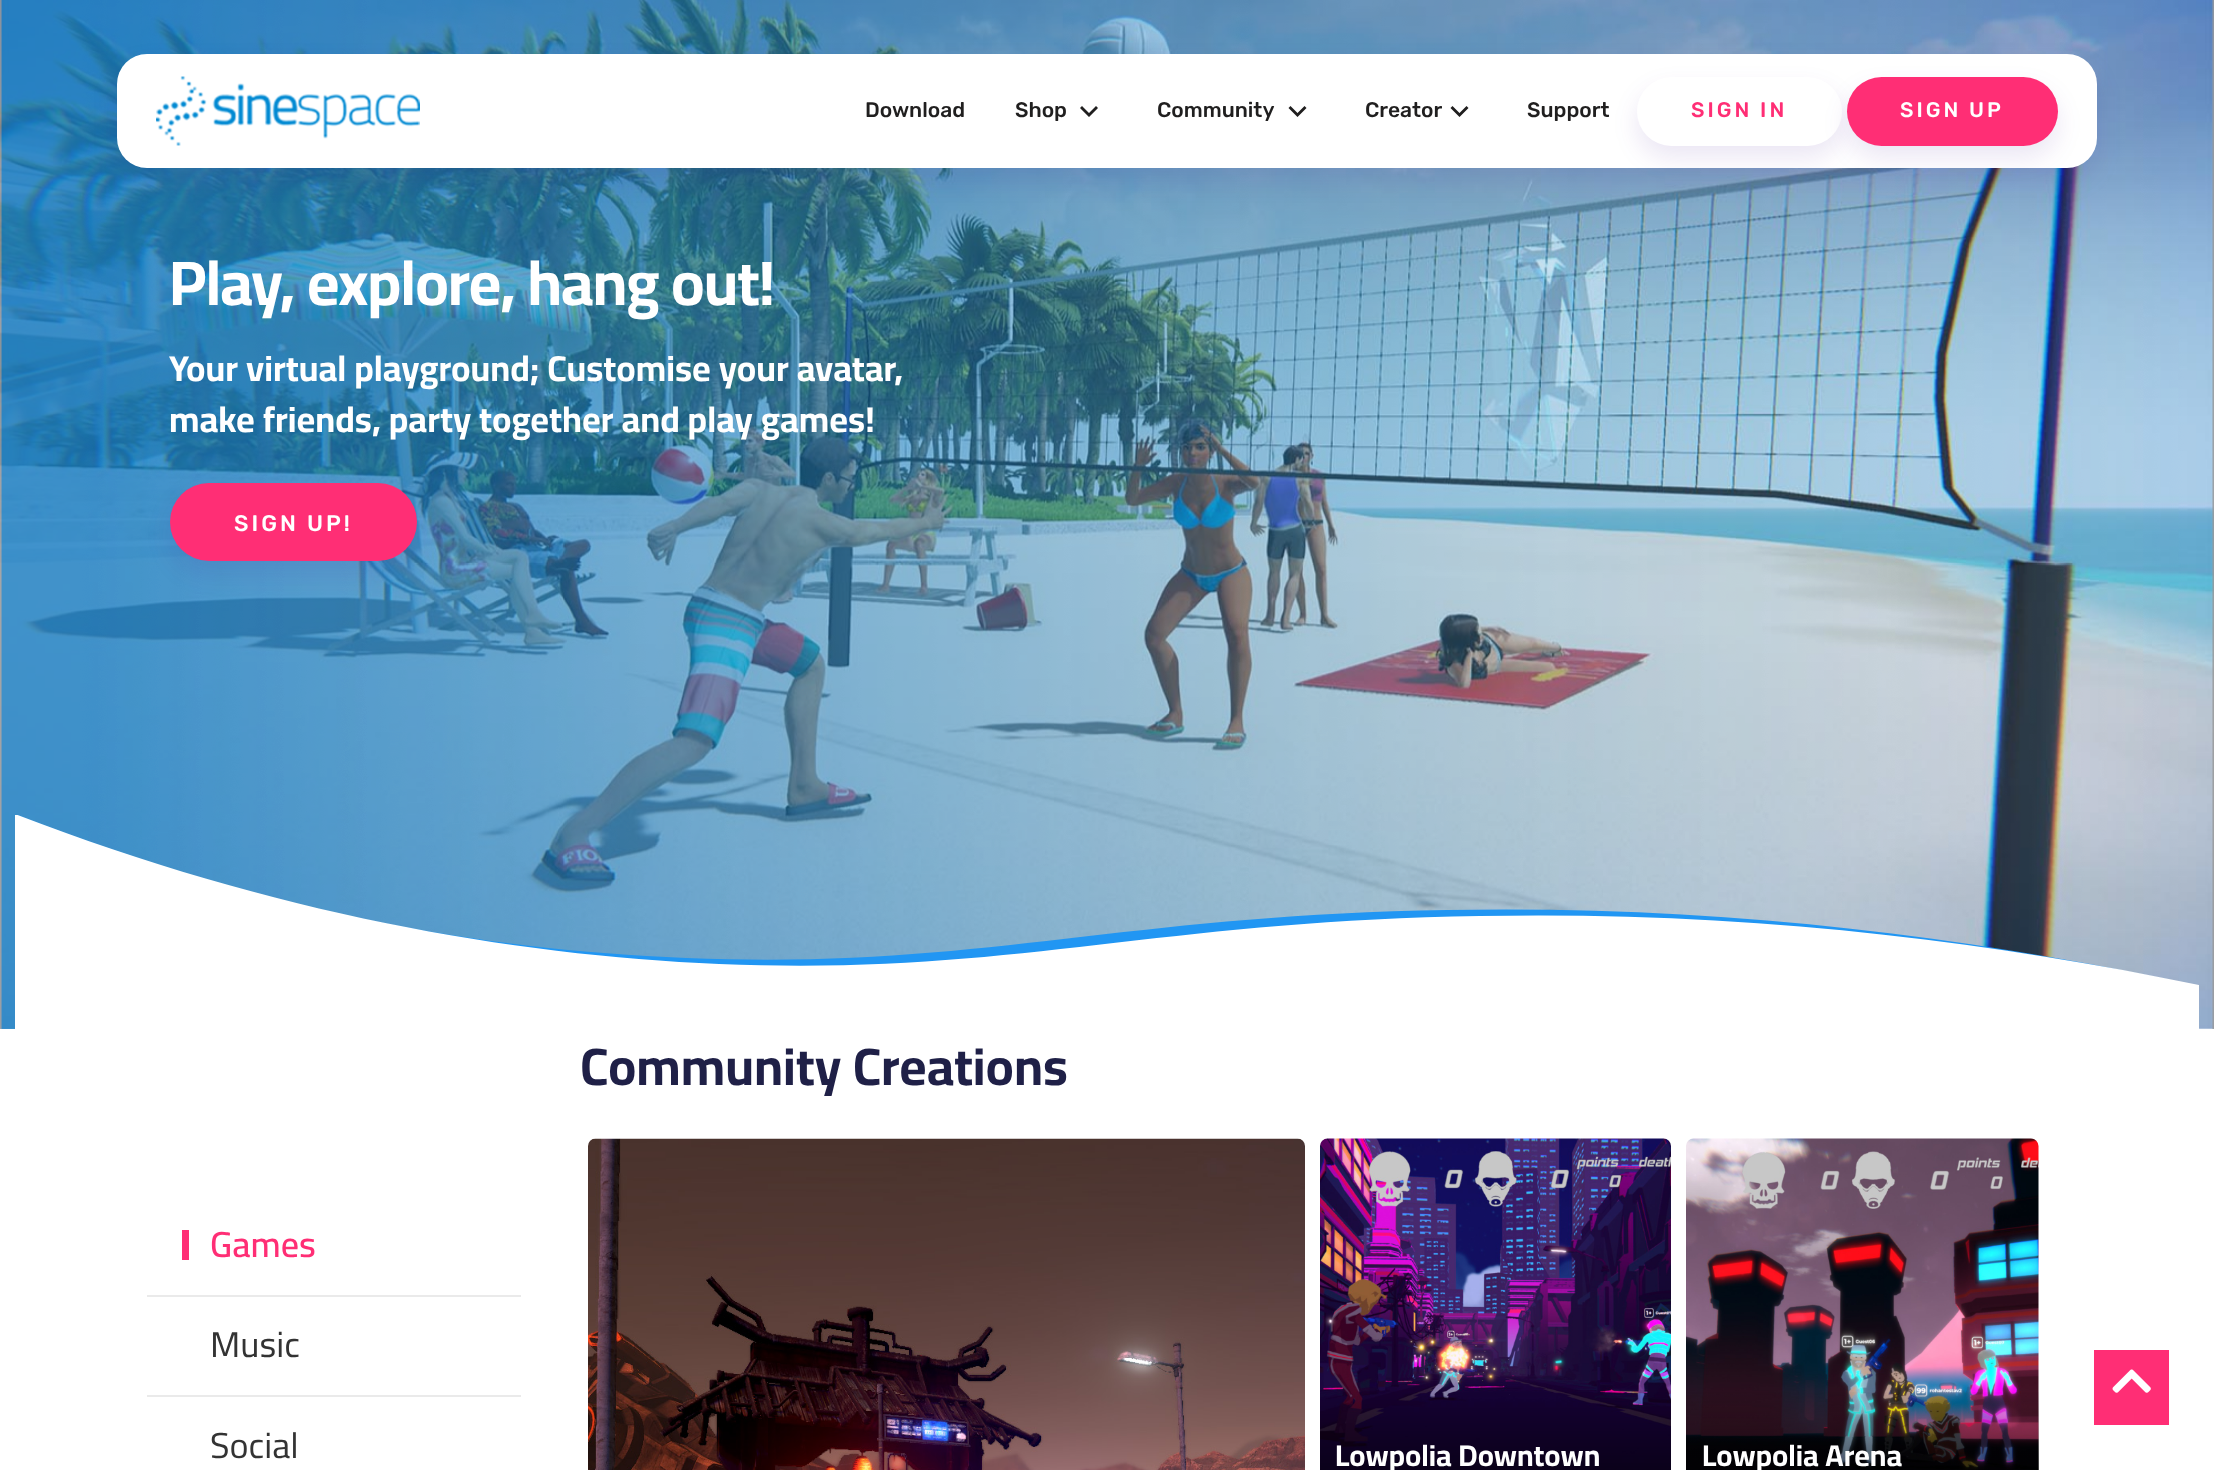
<!DOCTYPE html>
<meta charset="utf-8">
<style>body { margin: 0 } canvas { display: block }</style>
<canvas id="canvas" width="2214" height="1470"></canvas>
<script type="module">
  const canvas = document.getElementById("canvas");
  const ctx = canvas.getContext("2d");
  ctx.miterLimit = 4;
  ctx.fontKerning = "normal";
  async function loadImage(src) {
    const img = new Image();
    img.src = src;
    await img.decode();
    return img;
  }
  let gradient;

  ctx.fillStyle = "#ffffff";
  ctx.fillRect(0, 0, 2214, 1470);
  ctx.drawImage(await loadImage("img2.png"), 0, 0, 2214, 1029);
  ctx.drawImage(await loadImage("img3.png"), 0, 0, 2214, 1029);
  ctx.fillStyle = "rgba(55, 8, 152, 0.1)";
  ctx.filter = "blur(12px)";
  ctx.beginPath();
  ctx.roundRect(117, 66, 1980, 114, 30);
  ctx.fill();
  ctx.filter = "none";
  ctx.fillStyle = "#ffffff";
  ctx.beginPath();
  ctx.roundRect(117, 54, 1980, 114, 30);
  ctx.fill();
  ctx.drawImage(await loadImage("img1.png"), 156, 76, 264, 70);
  ctx.font = "300 21px Rubik";
  ctx.fillStyle = "#201f1f";
  ctx.fillText("Download", 865, 117);
  ctx.fillText("Shop", 1015, 117);
  ctx.beginPath();
  ctx.moveTo(1096, 106);
  ctx.lineTo(1098, 108);
  ctx.lineTo(1089, 117);
  ctx.lineTo(1080, 108);
  ctx.lineTo(1082, 106);
  ctx.lineTo(1089, 113);
  ctx.closePath();
  ctx.fill();
  ctx.fillText("Community", 1157, 117);
  ctx.beginPath();
  ctx.moveTo(1304.5, 106);
  ctx.lineTo(1306.5, 108);
  ctx.lineTo(1297.5, 117);
  ctx.lineTo(1288.5, 108);
  ctx.lineTo(1290.5, 106);
  ctx.lineTo(1297.5, 113);
  ctx.closePath();
  ctx.fill();
  ctx.fillText("Creator", 1365, 117);
  ctx.beginPath();
  ctx.moveTo(1466.5, 106);
  ctx.lineTo(1468.5, 108);
  ctx.lineTo(1459.5, 117);
  ctx.lineTo(1450.5, 108);
  ctx.lineTo(1452.5, 106);
  ctx.lineTo(1459.5, 113);
  ctx.closePath();
  ctx.fill();
  ctx.fillText("Support", 1527, 117);
  ctx.fillStyle = "rgba(55, 8, 152, 0.1)";
  ctx.filter = "blur(12px)";
  ctx.beginPath();
  ctx.roundRect(1637, 89, 205, 69, 34.5);
  ctx.fill();
  ctx.filter = "none";
  ctx.fillStyle = "#ffffff";
  ctx.beginPath();
  ctx.roundRect(1637, 77, 205, 69, 34.5);
  ctx.fill();
  ctx.letterSpacing = "3px";
  ctx.fillStyle = "#ff2e75";
  ctx.fillText("SIGN IN", 1691, 117);
  ctx.fillStyle = "rgba(55, 8, 152, 0.1)";
  ctx.filter = "blur(12px)";
  ctx.beginPath();
  ctx.roundRect(1847, 89, 211, 69, 34.5);
  ctx.fill();
  ctx.filter = "none";
  ctx.fillStyle = "#ff2e75";
  ctx.beginPath();
  ctx.roundRect(1847, 77, 211, 69, 34.5);
  ctx.fill();
  ctx.fillStyle = "#ffffff";
  ctx.fillText("SIGN UP", 1900, 117);
  ctx.letterSpacing = "-1.25px";
  ctx.font = "bold 63px Cairo";
  ctx.fillText("Play, explore, hang out!", 169, 305);
  ctx.letterSpacing = "0px";
  ctx.font = "bold 36px Cairo";
  ctx.fillText("Your virtual playground; Customise your avatar,", 169, 381);
  ctx.fillText("make friends, party together and play games!", 169, 432);
  ctx.fillStyle = "rgba(55, 8, 152, 0.1)";
  ctx.filter = "blur(12px)";
  ctx.beginPath();
  ctx.roundRect(170, 495, 247, 78, 39);
  ctx.fill();
  ctx.filter = "none";
  ctx.fillStyle = "#ff2e75";
  ctx.beginPath();
  ctx.roundRect(170, 483, 247, 78, 39);
  ctx.fill();
  ctx.letterSpacing = "3px";
  ctx.font = "300 22.5px Rubik";
  ctx.fillStyle = "#ffffff";
  ctx.fillText("SIGN UP!", 234, 531);
  ctx.save();
  ctx.beginPath();
  ctx.rect(0, 815, 2214, 214);
  ctx.clip();
  ctx.fillStyle = "#2196f3";
  ctx.beginPath();
  ctx.moveTo(15, 814);
  ctx.bezierCurveTo(272, 913, 475, 949, 686, 958);
  ctx.bezierCurveTo(976, 970, 1117, 915, 1447, 910);
  ctx.bezierCurveTo(1709, 905, 1950, 934, 2166, 979);
  ctx.lineTo(2166, 1037);
  ctx.lineTo(15, 1043);
  ctx.closePath();
  ctx.fill();
  ctx.fillStyle = "#ffffff";
  ctx.beginPath();
  ctx.moveTo(15, 814);
  ctx.bezierCurveTo(272, 913, 508, 955, 719, 964);
  ctx.bezierCurveTo(1009, 976, 1150, 921, 1480, 916);
  ctx.bezierCurveTo(1742, 911, 1983, 940, 2199, 985);
  ctx.lineTo(2199, 1043);
  ctx.lineTo(15, 1043);
  ctx.closePath();
  ctx.fill();
  ctx.restore();
  ctx.fillStyle = "#eaeaea";
  ctx.fillRect(147, 1295, 374, 2);
  ctx.fillStyle = "#ff2e75";
  ctx.fillRect(182, 1230, 7, 30);
  ctx.letterSpacing = "0px";
  ctx.font = "600 36px Cairo";
  ctx.fillText("Games", 210, 1257);
  ctx.fillStyle = "#eaeaea";
  ctx.fillRect(147, 1395, 374, 2);
  ctx.font = "36px Cairo";
  ctx.fillStyle = "#333333";
  ctx.fillText("Music", 210, 1357);
  ctx.fillText("Social", 210, 1458);
  ctx.font = "bold 52.5px Cairo";
  ctx.fillStyle = "#1f2047";
  ctx.fillText("Community Creations", 580, 1085);
  ctx.drawImage(await loadImage("img4.png"), 588, 1138, 717, 332);
  ctx.drawImage(await loadImage("img5.png"), 1320, 1138, 351, 332);
  ctx.font = "bold 30px Cairo";
  ctx.fillStyle = "#ffffff";
  ctx.fillText("Lowpolia Downtown", 1335, 1466);
  ctx.drawImage(await loadImage("img6.png"), 1686, 1138, 353, 332);
  gradient = ctx.createLinearGradient(1862, 1385, 1862, 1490);
  gradient.addColorStop(0.03, "rgba(0, 0, 0, 0)");
  gradient.addColorStop(1, "rgba(0, 0, 0, 0.62)");
  ctx.fillStyle = gradient;
  ctx.fillRect(1686, 1392, 353, 78);
  ctx.fillStyle = "#ffffff";
  ctx.fillText("Lowpolia Arena", 1702, 1466);
  ctx.fillStyle = "#ff2e75";
  ctx.fillRect(2094, 1350, 75, 75);
  ctx.drawImage(await loadImage("img7.png"), 2112, 1369, 39, 24);
</script>
